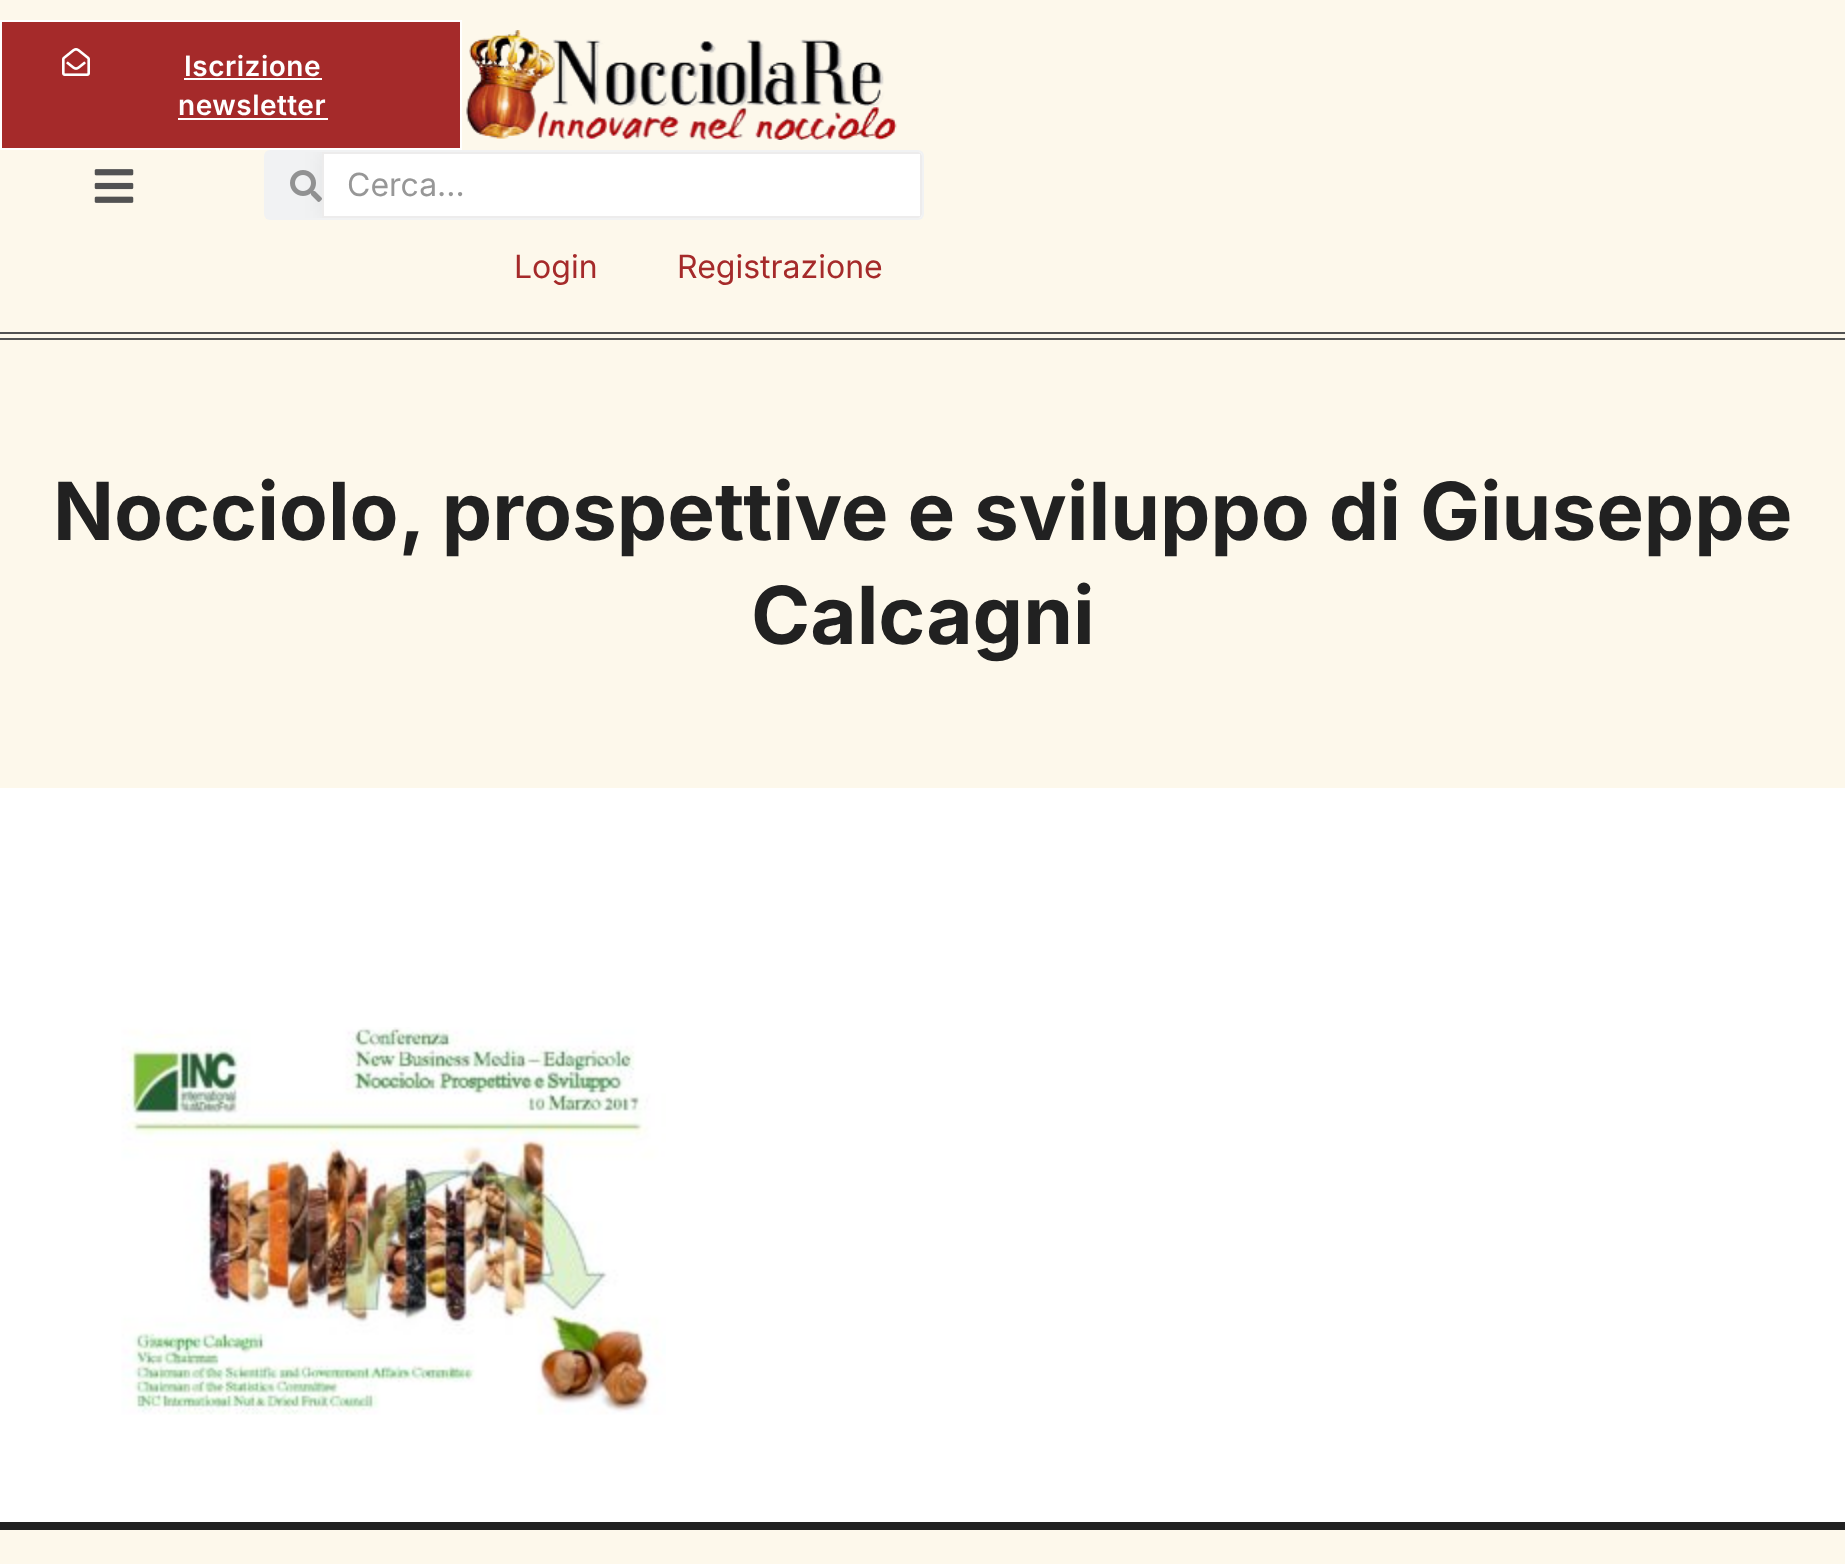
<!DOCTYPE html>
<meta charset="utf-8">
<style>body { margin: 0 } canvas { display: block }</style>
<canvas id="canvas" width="1845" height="1564"></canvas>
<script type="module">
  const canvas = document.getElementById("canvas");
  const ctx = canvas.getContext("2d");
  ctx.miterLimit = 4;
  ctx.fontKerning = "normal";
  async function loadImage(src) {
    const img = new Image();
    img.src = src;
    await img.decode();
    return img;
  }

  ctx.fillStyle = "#ffffff";
  ctx.fillRect(0, 0, 1845, 1564);
  ctx.fillStyle = "#fdf8eb";
  ctx.fillRect(0, 0, 1845, 338);
  ctx.fillStyle = "#525252";
  ctx.fillRect(0, 332, 1845, 2);
  ctx.fillRect(0, 338, 1845, 2);
  ctx.fillStyle = "#a52a2a";
  ctx.beginPath();
  ctx.rect(1, 21, 460, 128);
  ctx.fill();
  ctx.strokeStyle = "#ffffff";
  ctx.lineWidth = 2;
  ctx.stroke();
  ctx.drawImage(await loadImage("img1.png"), 62, 48, 28, 28);
  ctx.letterSpacing = "0.5px";
  ctx.font = "600 28px Inter";
  ctx.fillStyle = "#ffffff";
  ctx.fillText("Iscrizione", 184, 76);
  ctx.fillRect(184, 78, 138, 2);
  ctx.fillText("newsletter", 178, 115);
  ctx.fillRect(178, 118, 150, 2);
  ctx.drawImage(await loadImage("img2.png"), 466, 30, 431, 110);
  ctx.drawImage(await loadImage("img3.png"), 94, 169, 40, 34);
  ctx.fillStyle = "#f1f2f3";
  ctx.beginPath();
  ctx.roundRect(264, 150, 660, 70, 6);
  ctx.fill();
  ctx.save();
  ctx.beginPath();
  ctx.roundRect(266, 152, 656, 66, 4);
  ctx.clip();
  ctx.fillStyle = "rgba(0, 0, 0, 0.06)";
  ctx.filter = "blur(10px)";
  ctx.beginPath();
  ctx.rect(322, 152, 600, 66);
  ctx.fill();
  ctx.filter = "none";
  ctx.restore();
  ctx.drawImage(await loadImage("img4.png"), 290, 170, 32, 32);
  ctx.fillStyle = "#ffffff";
  ctx.beginPath();
  ctx.roundRect(322, 152, 600, 66, [0, 4, 4, 0]);
  ctx.fill();
  ctx.fillStyle = "#edecec";
  ctx.beginPath();
  ctx.moveTo(322, 152);
  ctx.lineTo(322, 218);
  ctx.lineTo(918, 218);
  ctx.bezierCurveTo(920, 218, 922, 216, 922, 214);
  ctx.lineTo(922, 156);
  ctx.bezierCurveTo(922, 154, 920, 152, 918, 152);
  ctx.closePath();
  ctx.moveTo(324, 154);
  ctx.lineTo(324, 216);
  ctx.lineTo(920, 216);
  ctx.lineTo(920, 154);
  ctx.closePath();
  ctx.fill("evenodd");
  ctx.letterSpacing = "0px";
  ctx.font = "32px Inter";
  ctx.fillStyle = "#979797";
  ctx.fillText("Cerca...", 347, 196);
  ctx.fillStyle = "#a52a2a";
  ctx.fillText("Login", 514, 278);
  ctx.fillText("Registrazione", 677, 278);
  ctx.fillStyle = "#fdf8eb";
  ctx.fillRect(0, 340, 1845, 448);
  ctx.font = "bold 80px Inter";
  ctx.fillStyle = "#212121";
  ctx.fillText("Nocciolo, prospettive e sviluppo di Giuseppe", 53, 540);
  ctx.fillText("Calcagni", 751, 644);
  ctx.drawImage(await loadImage("img5.png"), 121, 1027, 545, 388);
  ctx.fillStyle = "#fdf8eb";
  ctx.fillRect(0, 1530, 1845, 34);
  ctx.fillStyle = "#212121";
  ctx.fillRect(0, 1522, 1845, 8);
</script>
